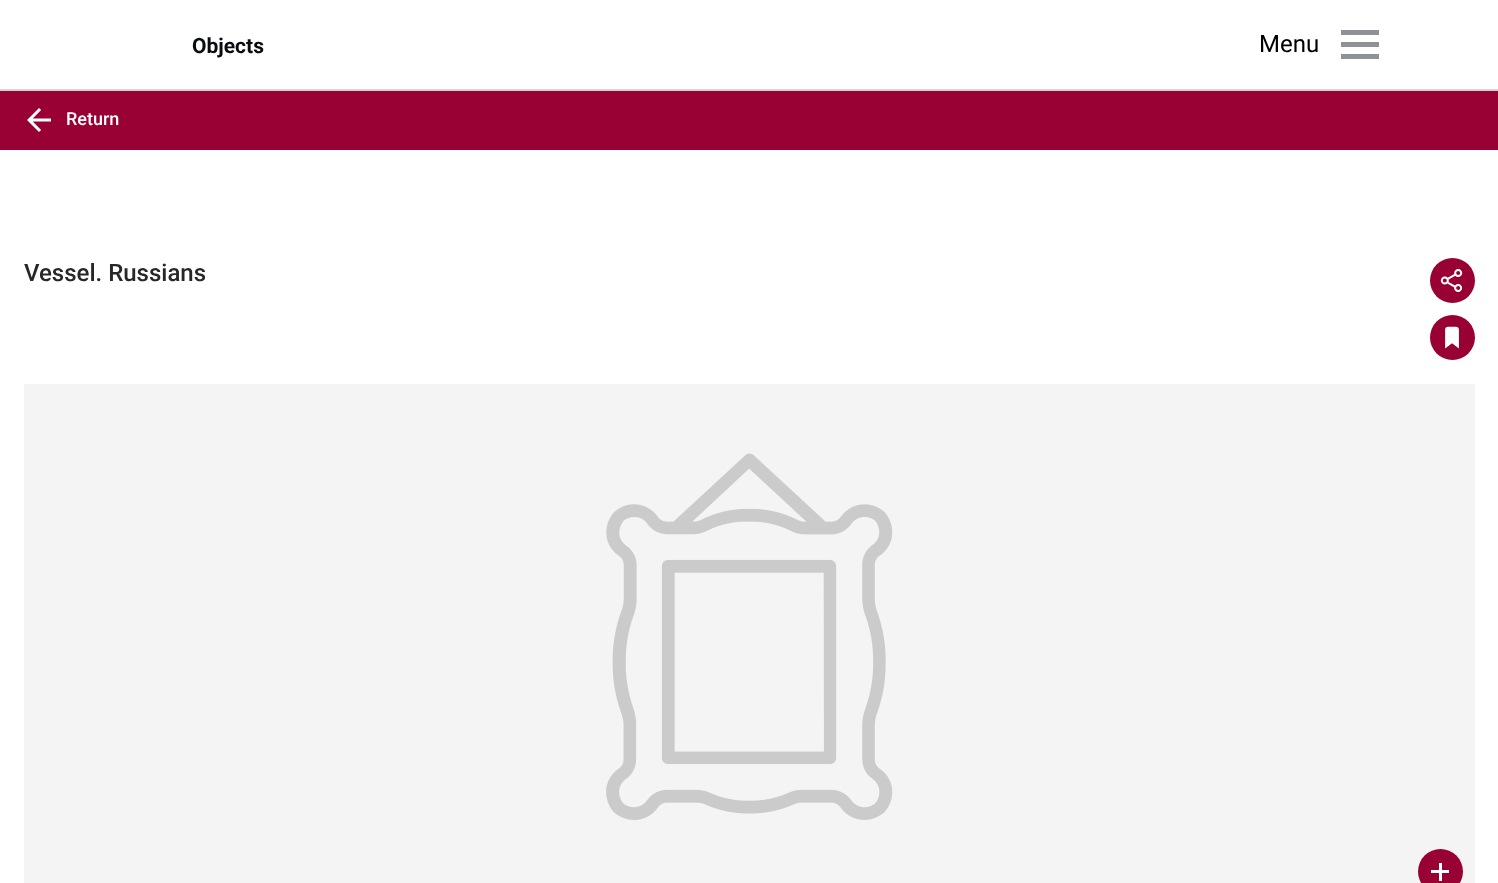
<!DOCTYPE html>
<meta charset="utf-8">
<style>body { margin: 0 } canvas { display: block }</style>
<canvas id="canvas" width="1498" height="883"></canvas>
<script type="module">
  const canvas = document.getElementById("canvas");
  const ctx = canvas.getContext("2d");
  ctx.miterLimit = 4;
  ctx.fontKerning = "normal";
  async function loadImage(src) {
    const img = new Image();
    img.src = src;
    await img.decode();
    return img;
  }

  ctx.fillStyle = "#ffffff";
  ctx.fillRect(0, 0, 1498, 883);
  ctx.fillStyle = "#d3d3d3";
  ctx.fillRect(0, 89, 1498, 2);
  ctx.font = "bold 21px Roboto";
  ctx.fillStyle = "#0a0d10";
  ctx.fillText("Objects", 192, 53);
  ctx.fillStyle = "#8e9195";
  ctx.fillRect(1341, 30, 38, 5);
  ctx.font = "24px Roboto";
  ctx.fillStyle = "#000000";
  ctx.fillText("Menu", 1259, 52);
  ctx.fillStyle = "#8e9195";
  ctx.fillRect(1341, 42, 38, 5);
  ctx.fillRect(1341, 54, 38, 5);
  ctx.fillStyle = "#990033";
  ctx.fillRect(0, 91, 1498, 59);
  ctx.drawImage(await loadImage("img1.png"), 27, 108, 24, 24);
  ctx.font = "500 18px Roboto";
  ctx.fillStyle = "#ffffff";
  ctx.fillText("Return", 66, 125);
  ctx.font = "500 24px Roboto";
  ctx.fillStyle = "#272727";
  ctx.fillText("Vessel. Russians", 24, 281);
  ctx.fillStyle = "#990033";
  ctx.beginPath();
  ctx.arc(1452.5, 280.5, 22.5, 0, Math.PI * 2);
  ctx.fill();
  ctx.drawImage(await loadImage("img2.png"), 1440, 269, 23, 23);
  ctx.beginPath();
  ctx.arc(1452.5, 337.5, 22.5, 0, Math.PI * 2);
  ctx.fill();
  ctx.drawImage(await loadImage("img3.png"), 1445, 326, 14, 23);
  ctx.fillStyle = "#f4f4f4";
  ctx.fillRect(24, 384, 1451, 499);
  ctx.drawImage(await loadImage("img4.png"), 606, 453, 287, 367);
  ctx.fillStyle = "#990033";
  ctx.beginPath();
  ctx.arc(1440.5, 871.5, 22.5, 0, Math.PI * 2);
  ctx.fill();
  ctx.fillStyle = "#ffffff";
  ctx.fillRect(1431, 870, 18, 3);
  ctx.fillRect(1439, 863, 3, 18);
</script>
